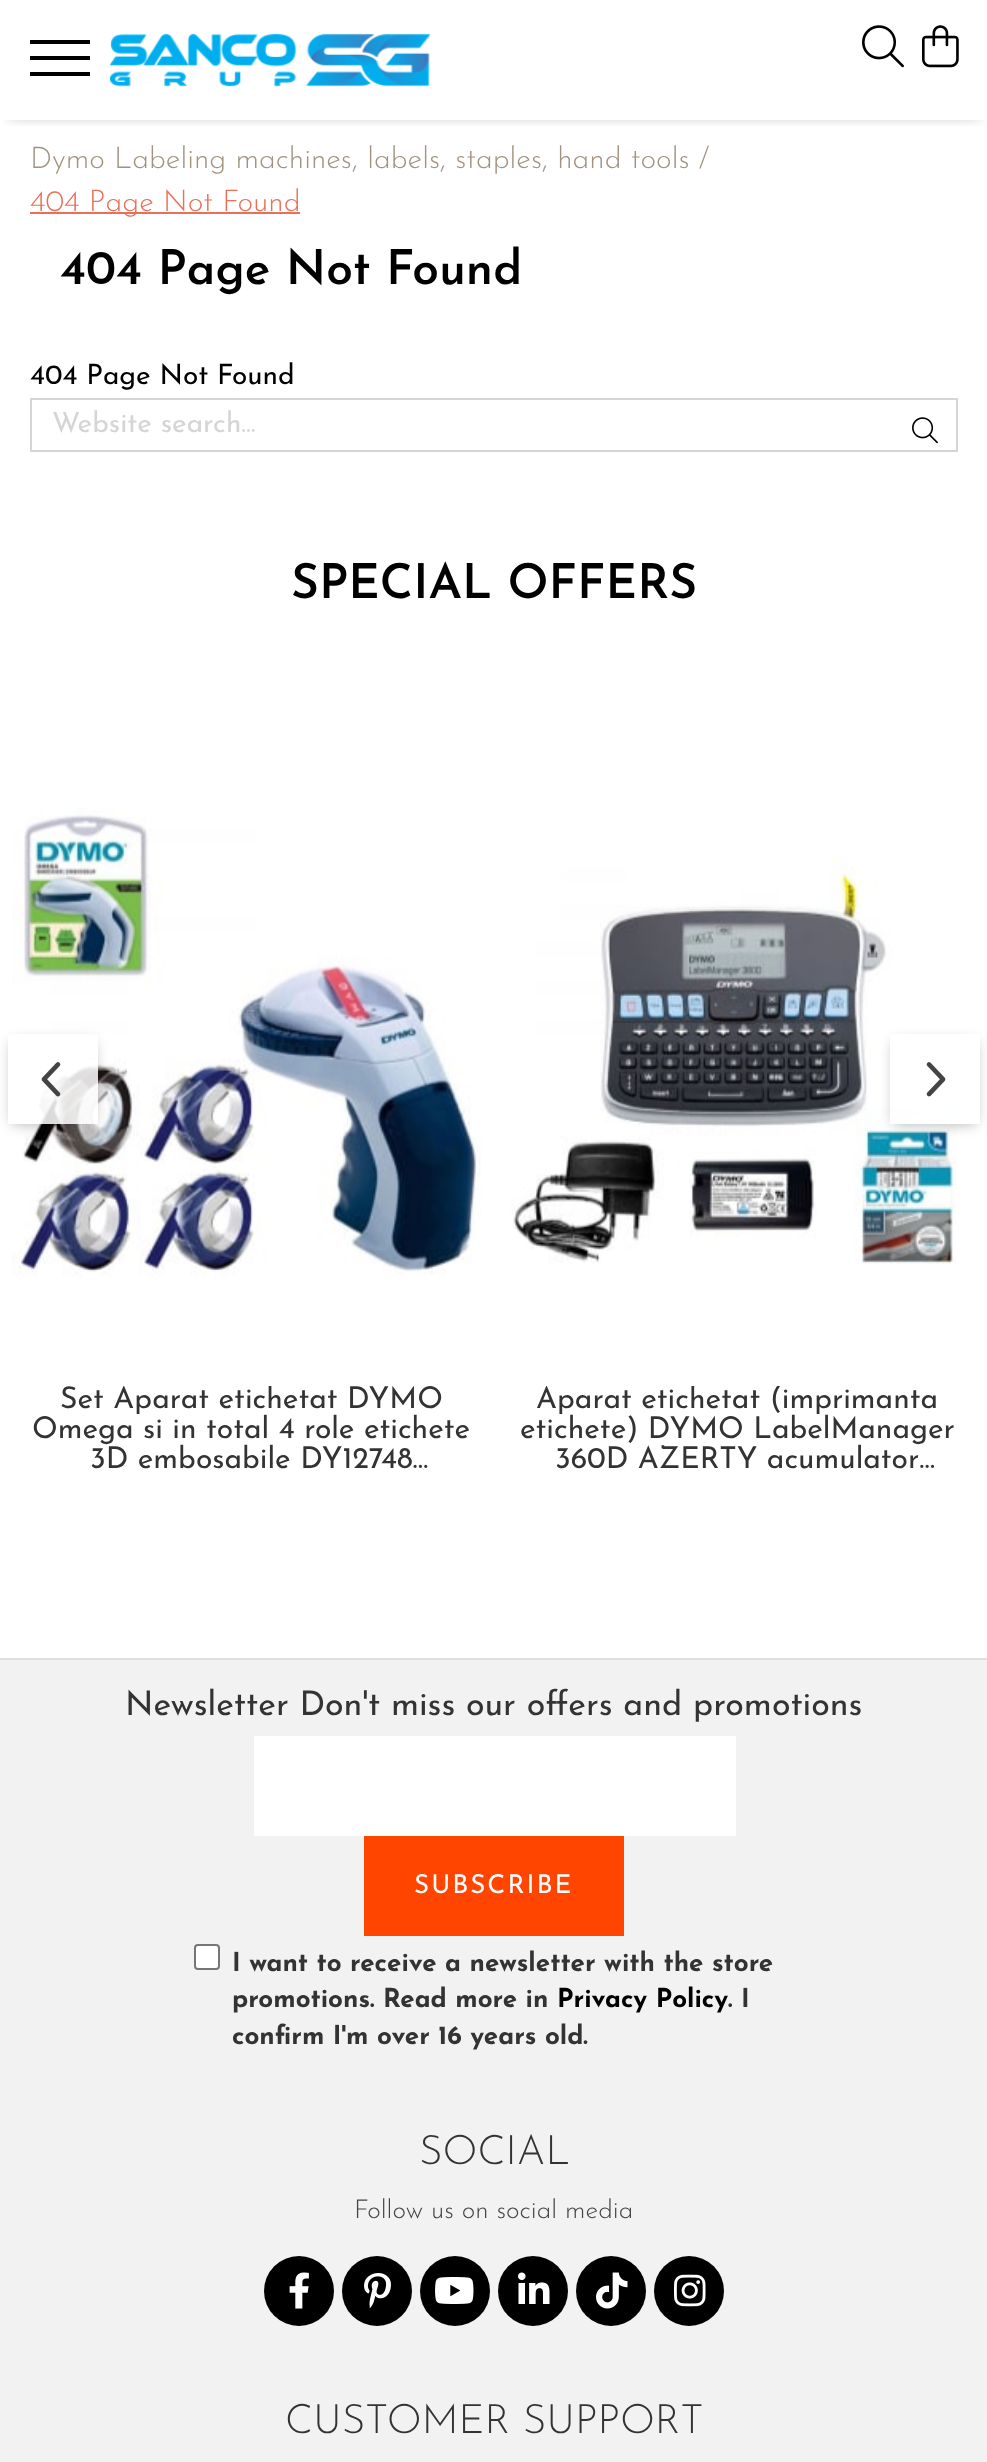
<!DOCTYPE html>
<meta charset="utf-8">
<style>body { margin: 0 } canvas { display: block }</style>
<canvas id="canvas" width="987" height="2462"></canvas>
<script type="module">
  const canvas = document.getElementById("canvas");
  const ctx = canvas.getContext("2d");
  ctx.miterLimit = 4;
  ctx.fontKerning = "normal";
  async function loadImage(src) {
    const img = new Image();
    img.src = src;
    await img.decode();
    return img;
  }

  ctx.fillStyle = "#ffffff";
  ctx.fillRect(0, 0, 987, 2462);
  ctx.save();
  ctx.beginPath();
  ctx.rect(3, 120, 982, 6);
  ctx.clip();
  ctx.fillStyle = "rgba(0, 0, 0, 0.3)";
  ctx.filter = "blur(7px)";
  ctx.beginPath();
  ctx.rect(8, 12, 972, 104);
  ctx.fill();
  ctx.filter = "none";
  ctx.restore();
  ctx.fillStyle = "#000000";
  ctx.fillRect(30, 56, 60, 4);
  ctx.fillRect(30, 40, 60, 4);
  ctx.fillRect(30, 72, 60, 4);
  ctx.drawImage(await loadImage("img1.png"), 110, 33, 320, 54);
  ctx.drawImage(await loadImage("img2.png"), 862, 25, 42, 43);
  ctx.drawImage(await loadImage("img3.png"), 922, 25, 37, 43);
  ctx.font = "300 30px Josefin Sans";
  ctx.fillStyle = "#a19380";
  ctx.fillText("Dymo Labeling machines, labels, staples, hand tools /", 30, 168);
  ctx.fillStyle = "#e96f56";
  ctx.fillRect(30, 212, 270, 2);
  ctx.fillText("404 Page Not Found", 30, 211);
  ctx.font = "600 48px Josefin Sans";
  ctx.fillStyle = "#000000";
  ctx.fillText("404 Page Not Found", 60, 284);
  ctx.font = "28px Josefin Sans";
  ctx.fillText("404 Page Not Found", 30, 384);
  ctx.strokeStyle = "#d5d5d5";
  ctx.lineWidth = 2;
  ctx.strokeRect(31, 399, 926, 52);
  ctx.fillStyle = "#d5d5d5";
  ctx.fillText("Website search...", 52, 432);
  ctx.drawImage(await loadImage("img4.png"), 912, 417, 26, 27);
  ctx.font = "600 48px Josefin Sans";
  ctx.fillStyle = "#000000";
  ctx.fillText("SPECIAL OFFERS", 291, 598);
  ctx.drawImage(await loadImage("img7.png"), 12, 808, 470, 473);
  ctx.save();
  ctx.beginPath();
  ctx.moveTo(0, 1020);
  ctx.lineTo(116, 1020);
  ctx.lineTo(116, 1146);
  ctx.lineTo(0, 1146);
  ctx.closePath();
  ctx.moveTo(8, 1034);
  ctx.lineTo(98, 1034);
  ctx.lineTo(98, 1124);
  ctx.lineTo(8, 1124);
  ctx.closePath();
  ctx.clip("evenodd");
  ctx.fillStyle = "rgba(0, 0, 0, 0.3)";
  ctx.filter = "blur(7px)";
  ctx.beginPath();
  ctx.rect(12, 1042, 82, 82);
  ctx.fill();
  ctx.filter = "none";
  ctx.restore();
  ctx.fillStyle = "rgba(255, 255, 255, 0.85)";
  ctx.fillRect(37, 1060, 61, 64);
  ctx.drawImage(await loadImage("img5.png"), 41, 1062, 20, 35);
  ctx.drawImage(await loadImage("img8.png"), 511, 857, 446, 407);
  ctx.save();
  ctx.beginPath();
  ctx.moveTo(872, 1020);
  ctx.lineTo(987, 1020);
  ctx.lineTo(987, 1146);
  ctx.lineTo(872, 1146);
  ctx.closePath();
  ctx.moveTo(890, 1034);
  ctx.lineTo(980, 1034);
  ctx.lineTo(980, 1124);
  ctx.lineTo(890, 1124);
  ctx.closePath();
  ctx.clip("evenodd");
  ctx.fillStyle = "rgba(0, 0, 0, 0.3)";
  ctx.filter = "blur(7px)";
  ctx.beginPath();
  ctx.rect(894, 1042, 82, 82);
  ctx.fill();
  ctx.filter = "none";
  ctx.restore();
  ctx.fillRect(908, 1117, 48, 7);
  ctx.drawImage(await loadImage("img6.png"), 926, 1062, 20, 35);
  ctx.save();
  ctx.beginPath();
  ctx.rect(12, 1386, 478, 90);
  ctx.clip();
  ctx.font = "30px Josefin Sans";
  ctx.fillStyle = "#333333";
  ctx.fillText("Set Aparat etichetat DYMO", 60, 1408);
  ctx.restore();
  ctx.font = "30px Josefin Sans";
  ctx.fillStyle = "#333333";
  ctx.fillText("Omega si in total 4 role etichete", 32, 1438);
  ctx.fillText("3D embosabile DY12748…", 90, 1468);
  ctx.save();
  ctx.beginPath();
  ctx.rect(498, 1386, 478, 90);
  ctx.clip();
  ctx.fillText("Aparat etichetat (imprimanta", 536, 1408);
  ctx.restore();
  ctx.fillText("etichete) DYMO LabelManager", 520, 1438);
  ctx.fillText("360D AZERTY acumulator…", 555, 1468);
  ctx.fillStyle = "#f2f2f2";
  ctx.fillRect(0, 1660, 987, 802);
  ctx.fillStyle = "#dfdfdf";
  ctx.fillRect(0, 1658, 987, 2);
  ctx.font = "34px Josefin Sans";
  ctx.fillStyle = "#333333";
  ctx.fillText("Newsletter Don't miss our offers and promotions", 125, 1715);
  ctx.fillStyle = "#ffffff";
  ctx.fillRect(254, 1736, 482, 100);
  ctx.fillStyle = "#ff4500";
  ctx.fillRect(364, 1836, 260, 100);
  ctx.letterSpacing = "2px";
  ctx.font = "26px Josefin Sans";
  ctx.fillStyle = "#ffffff";
  ctx.fillText("SUBSCRIBE", 414, 1893);
  ctx.beginPath();
  ctx.roundRect(195, 1945, 24, 24, 3);
  ctx.fill();
  ctx.strokeStyle = "#767676";
  ctx.stroke();
  ctx.letterSpacing = "0px";
  ctx.font = "bold 26px Josefin Sans";
  ctx.fillStyle = "#333333";
  ctx.fillText("I want to receive a newsletter with the store", 232, 1971);
  ctx.fillText("promotions. Read more in", 232, 2007);
  ctx.fillStyle = "#000000";
  ctx.fillText("Privacy Policy", 557, 2007);
  ctx.fillStyle = "#333333";
  ctx.fillText(". I", 728, 2007);
  ctx.fillText("confirm I'm over 16 years old.", 232, 2044);
  ctx.font = "300 40.6px Josefin Sans";
  ctx.fillText("SOCIAL", 419, 2164);
  ctx.font = "300 26px Josefin Sans";
  ctx.fillStyle = "#444444";
  ctx.fillText("Follow us on social media", 354, 2218);
  ctx.fillStyle = "#000000";
  ctx.beginPath();
  ctx.arc(299, 2291, 35, 0, Math.PI * 2);
  ctx.fill();
  ctx.drawImage(await loadImage("img9.png"), 289, 2272, 20, 37);
  ctx.beginPath();
  ctx.arc(377, 2291, 35, 0, Math.PI * 2);
  ctx.fill();
  ctx.drawImage(await loadImage("img10.png"), 364, 2273, 27, 35);
  ctx.beginPath();
  ctx.arc(455, 2291, 35, 0, Math.PI * 2);
  ctx.fill();
  ctx.drawImage(await loadImage("img11.png"), 435, 2277, 39, 27);
  ctx.beginPath();
  ctx.arc(533, 2291, 35, 0, Math.PI * 2);
  ctx.fill();
  ctx.drawImage(await loadImage("img12.png"), 518, 2272, 32, 32);
  ctx.beginPath();
  ctx.arc(611, 2291, 35, 0, Math.PI * 2);
  ctx.fill();
  ctx.drawImage(await loadImage("img13.png"), 596, 2272, 32, 37);
  ctx.beginPath();
  ctx.arc(689, 2291, 35, 0, Math.PI * 2);
  ctx.fill();
  ctx.drawImage(await loadImage("img14.png"), 674, 2274, 32, 33);
  ctx.font = "300 40.6px Josefin Sans";
  ctx.fillStyle = "#333333";
  ctx.fillText("CUSTOMER SUPPORT", 285, 2433);
</script>
